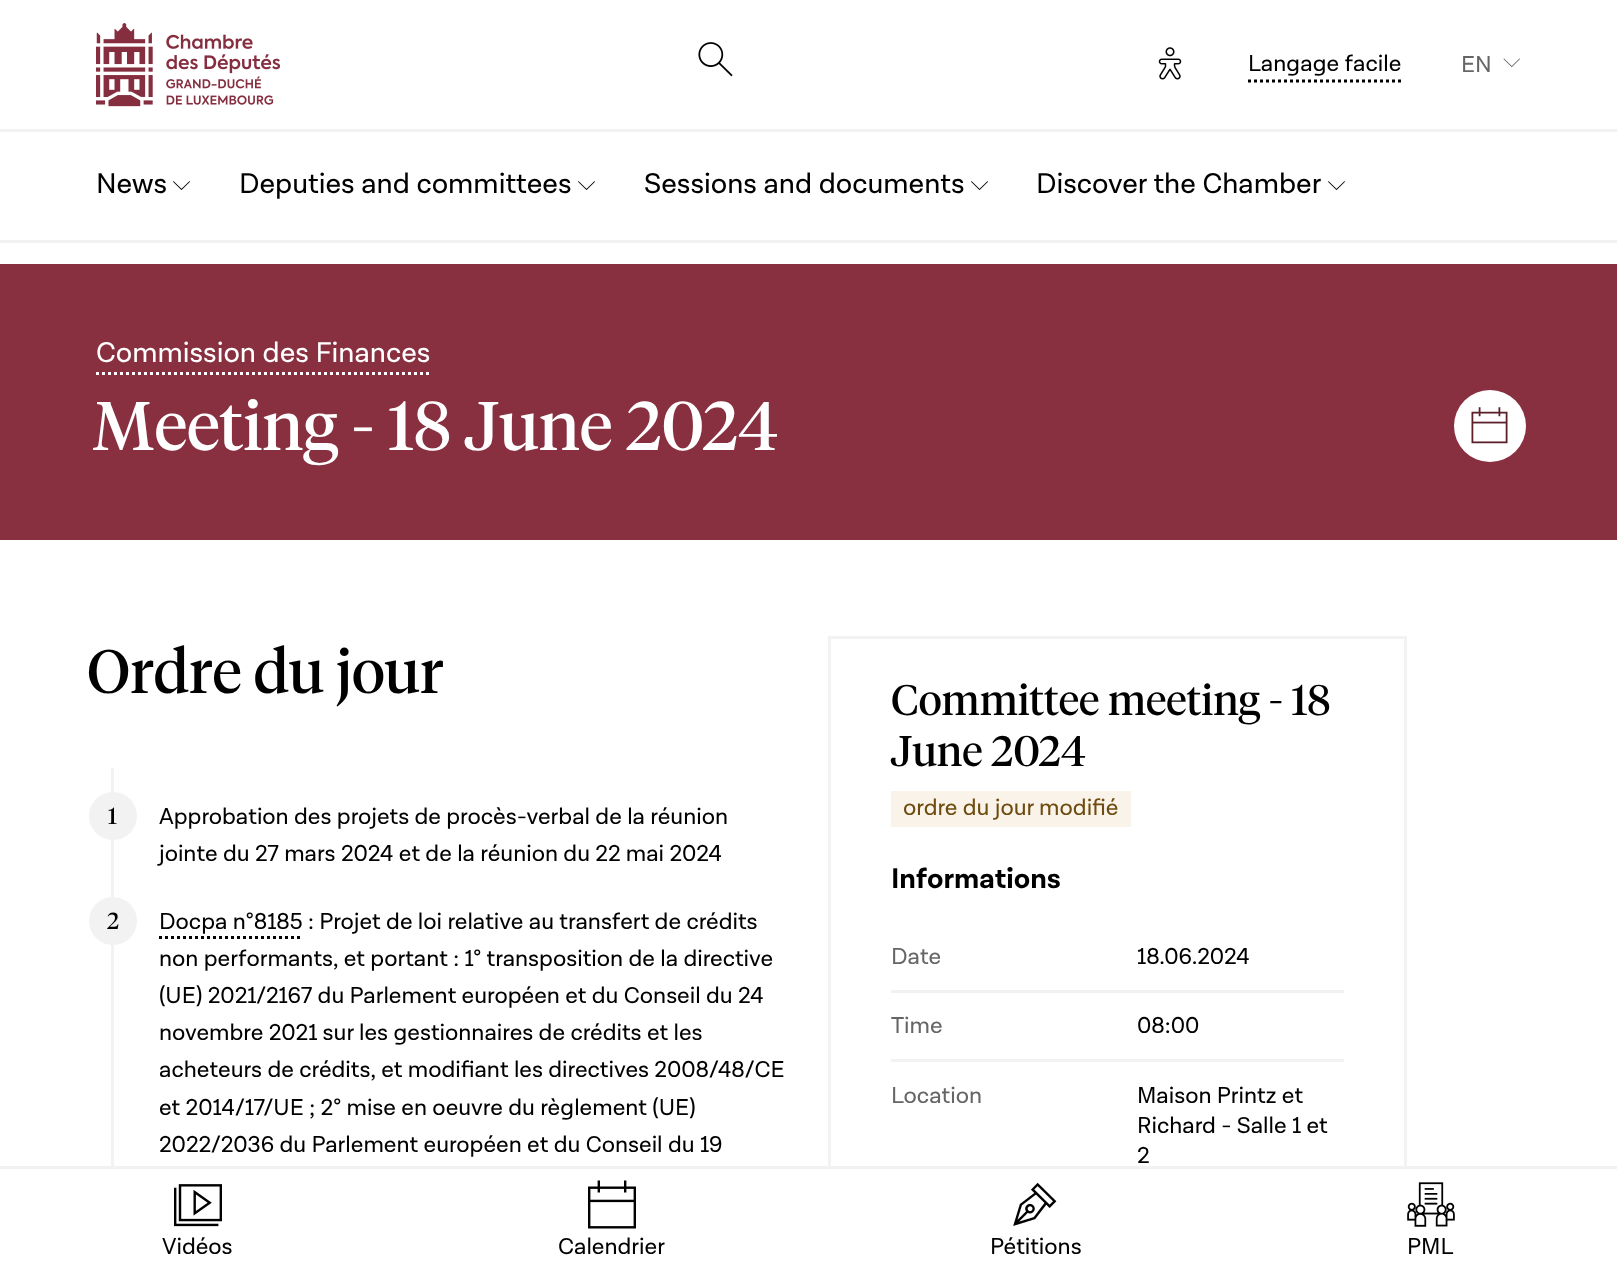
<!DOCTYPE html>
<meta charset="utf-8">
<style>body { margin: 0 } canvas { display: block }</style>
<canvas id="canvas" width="1617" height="1261"></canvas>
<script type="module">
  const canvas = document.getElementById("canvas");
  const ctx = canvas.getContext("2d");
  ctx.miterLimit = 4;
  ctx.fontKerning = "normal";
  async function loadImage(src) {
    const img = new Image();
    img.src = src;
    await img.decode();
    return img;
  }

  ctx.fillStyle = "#ffffff";
  ctx.fillRect(0, 0, 1617, 1261);
  ctx.fillStyle = "#f2f2f2";
  ctx.fillRect(0, 240, 1617, 3);
  ctx.fillRect(0, 129, 1617, 3);
  ctx.drawImage(await loadImage("img1.png"), 96, 23, 184, 84);
  ctx.drawImage(await loadImage("img2.png"), 698, 42, 35, 35);
  ctx.drawImage(await loadImage("img3.png"), 1158, 47, 24, 33);
  ctx.font = "23.25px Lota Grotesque";
  ctx.fillStyle = "#000000";
  ctx.fillText("Langage facile", 1248, 71);
  ctx.beginPath();
  ctx.moveTo(1248, 81);
  ctx.lineTo(1401, 81);
  ctx.strokeStyle = "#000000";
  ctx.lineWidth = 3;
  ctx.setLineDash([3, 3]);
  ctx.stroke();
  ctx.fillStyle = "#666666";
  ctx.fillText("EN", 1461, 72);
  ctx.drawImage(await loadImage("img4.png"), 1503, 58, 17, 10);
  ctx.font = "28.75px Lota Grotesque";
  ctx.fillStyle = "#000000";
  ctx.fillText("News", 96, 193);
  ctx.drawImage(await loadImage("img5.png"), 173, 181, 17, 9);
  ctx.fillText("Deputies and committees", 239, 193);
  ctx.drawImage(await loadImage("img5.png"), 578, 181, 17, 9);
  ctx.fillText("Sessions and documents", 644, 193);
  ctx.drawImage(await loadImage("img5.png"), 971, 181, 17, 9);
  ctx.fillText("Discover the Chamber", 1036, 193);
  ctx.drawImage(await loadImage("img5.png"), 1328, 181, 17, 9);
  ctx.strokeStyle = "#f2f2f2";
  ctx.setLineDash([]);
  ctx.strokeRect(829.5, 637.5, 576, 593);
  ctx.fillStyle = "#ffffff";
  ctx.fillRect(828, 1169, 579, 63);
  ctx.fillStyle = "#f2f2f2";
  ctx.fillRect(0, 1166, 1617, 3);
  ctx.drawImage(await loadImage("img6.png"), 174, 1184, 48, 43);
  ctx.font = "23.25px Lota Grotesque";
  ctx.fillStyle = "#000000";
  ctx.fillText("Vidéos", 162, 1254);
  ctx.drawImage(await loadImage("img7.png"), 588, 1180, 48, 49);
  ctx.fillText("Calendrier", 558, 1254);
  ctx.drawImage(await loadImage("img8.png"), 1013, 1182, 44, 44);
  ctx.fillText("Pétitions", 990, 1254);
  ctx.drawImage(await loadImage("img9.png"), 1407, 1182, 48, 45);
  ctx.fillText("PML", 1407, 1254);
  ctx.fillStyle = "#893040";
  ctx.fillRect(0, 264, 1617, 276);
  ctx.font = "28.75px Lota Grotesque";
  ctx.fillStyle = "#ffffff";
  ctx.fillText("Commission des Finances", 96, 362);
  ctx.beginPath();
  ctx.moveTo(96, 373.5);
  ctx.lineTo(430.5, 373.5);
  ctx.strokeStyle = "#ffffff";
  ctx.setLineDash([3, 3]);
  ctx.stroke();
  ctx.font = "68.5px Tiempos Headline";
  ctx.fillText("Meeting - 18 June 2024", 92, 450);
  ctx.beginPath();
  ctx.arc(1490, 426, 36, 0, Math.PI * 2);
  ctx.fill();
  ctx.drawImage(await loadImage("img10.png"), 1471, 407, 37, 37);
  ctx.font = "61px Tiempos Headline";
  ctx.fillStyle = "#000000";
  ctx.fillText("Ordre du jour", 87, 693);
  ctx.fillStyle = "#f2f2f2";
  ctx.fillRect(111, 768, 3, 398);
  ctx.beginPath();
  ctx.arc(113, 816, 24, 0, Math.PI * 2);
  ctx.fill();
  ctx.font = "23.25px Tiempos Headline";
  ctx.fillStyle = "#000000";
  ctx.fillText("1", 108, 824);
  ctx.font = "23.25px Lota Grotesque";
  ctx.fillText("Approbation des projets de procès-verbal de la réunion", 159, 824);
  ctx.fillText("jointe du 27 mars 2024 et de la réunion du 22 mai 2024", 159, 861);
  ctx.fillStyle = "#f2f2f2";
  ctx.beginPath();
  ctx.arc(113, 921, 24, 0, Math.PI * 2);
  ctx.fill();
  ctx.font = "23.25px Tiempos Headline";
  ctx.fillStyle = "#000000";
  ctx.fillText("2", 107, 929);
  ctx.font = "23.25px Lota Grotesque";
  ctx.fillText("Docpa n°8185 : Projet de loi relative au transfert de crédits", 159, 929);
  ctx.beginPath();
  ctx.moveTo(159, 937.5);
  ctx.lineTo(303, 937.5);
  ctx.strokeStyle = "#000000";
  ctx.stroke();
  ctx.fillText("non performants, et portant : 1° transposition de la directive", 159, 966);
  ctx.fillText("(UE) 2021/2167 du Parlement européen et du Conseil du 24", 159, 1003);
  ctx.fillText("novembre 2021 sur les gestionnaires de crédits et les", 159, 1040);
  ctx.fillText("acheteurs de crédits, et modifiant les directives 2008/48/CE", 159, 1077);
  ctx.fillText("et 2014/17/UE ; 2° mise en oeuvre du règlement (UE)", 159, 1115);
  ctx.fillText("2022/2036 du Parlement européen et du Conseil du 19", 159, 1152);
  ctx.font = "42.6px Tiempos Headline";
  ctx.fillText("Committee meeting - 18", 891, 715);
  ctx.fillText("June 2024", 891, 766);
  ctx.fillStyle = "#f9f3ea";
  ctx.fillRect(891, 791, 240, 36);
  ctx.font = "23.25px Lota Grotesque";
  ctx.fillStyle = "#6e4b0f";
  ctx.fillText("ordre du jour modifié", 903, 815);
  ctx.font = "bold 28.75px 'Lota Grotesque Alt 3'";
  ctx.fillStyle = "#000000";
  ctx.fillText("Informations", 891, 888);
  ctx.fillStyle = "#f2f2f2";
  ctx.fillRect(891, 990, 453, 3);
  ctx.font = "23.25px Lota Grotesque";
  ctx.fillStyle = "#666666";
  ctx.fillText("Date", 891, 964);
  ctx.fillStyle = "#000000";
  ctx.fillText("18.06.2024", 1137, 964);
  ctx.fillStyle = "#f2f2f2";
  ctx.fillRect(891, 1059, 453, 3);
  ctx.fillStyle = "#666666";
  ctx.fillText("Time", 891, 1033);
  ctx.fillStyle = "#000000";
  ctx.fillText("08:00", 1137, 1033);
  ctx.fillStyle = "#666666";
  ctx.fillText("Location", 891, 1103);
  ctx.fillStyle = "#000000";
  ctx.fillText("Maison Printz et", 1137, 1103);
  ctx.fillText("Richard - Salle 1 et", 1137, 1133);
  ctx.fillText("2", 1137, 1163);
</script>
